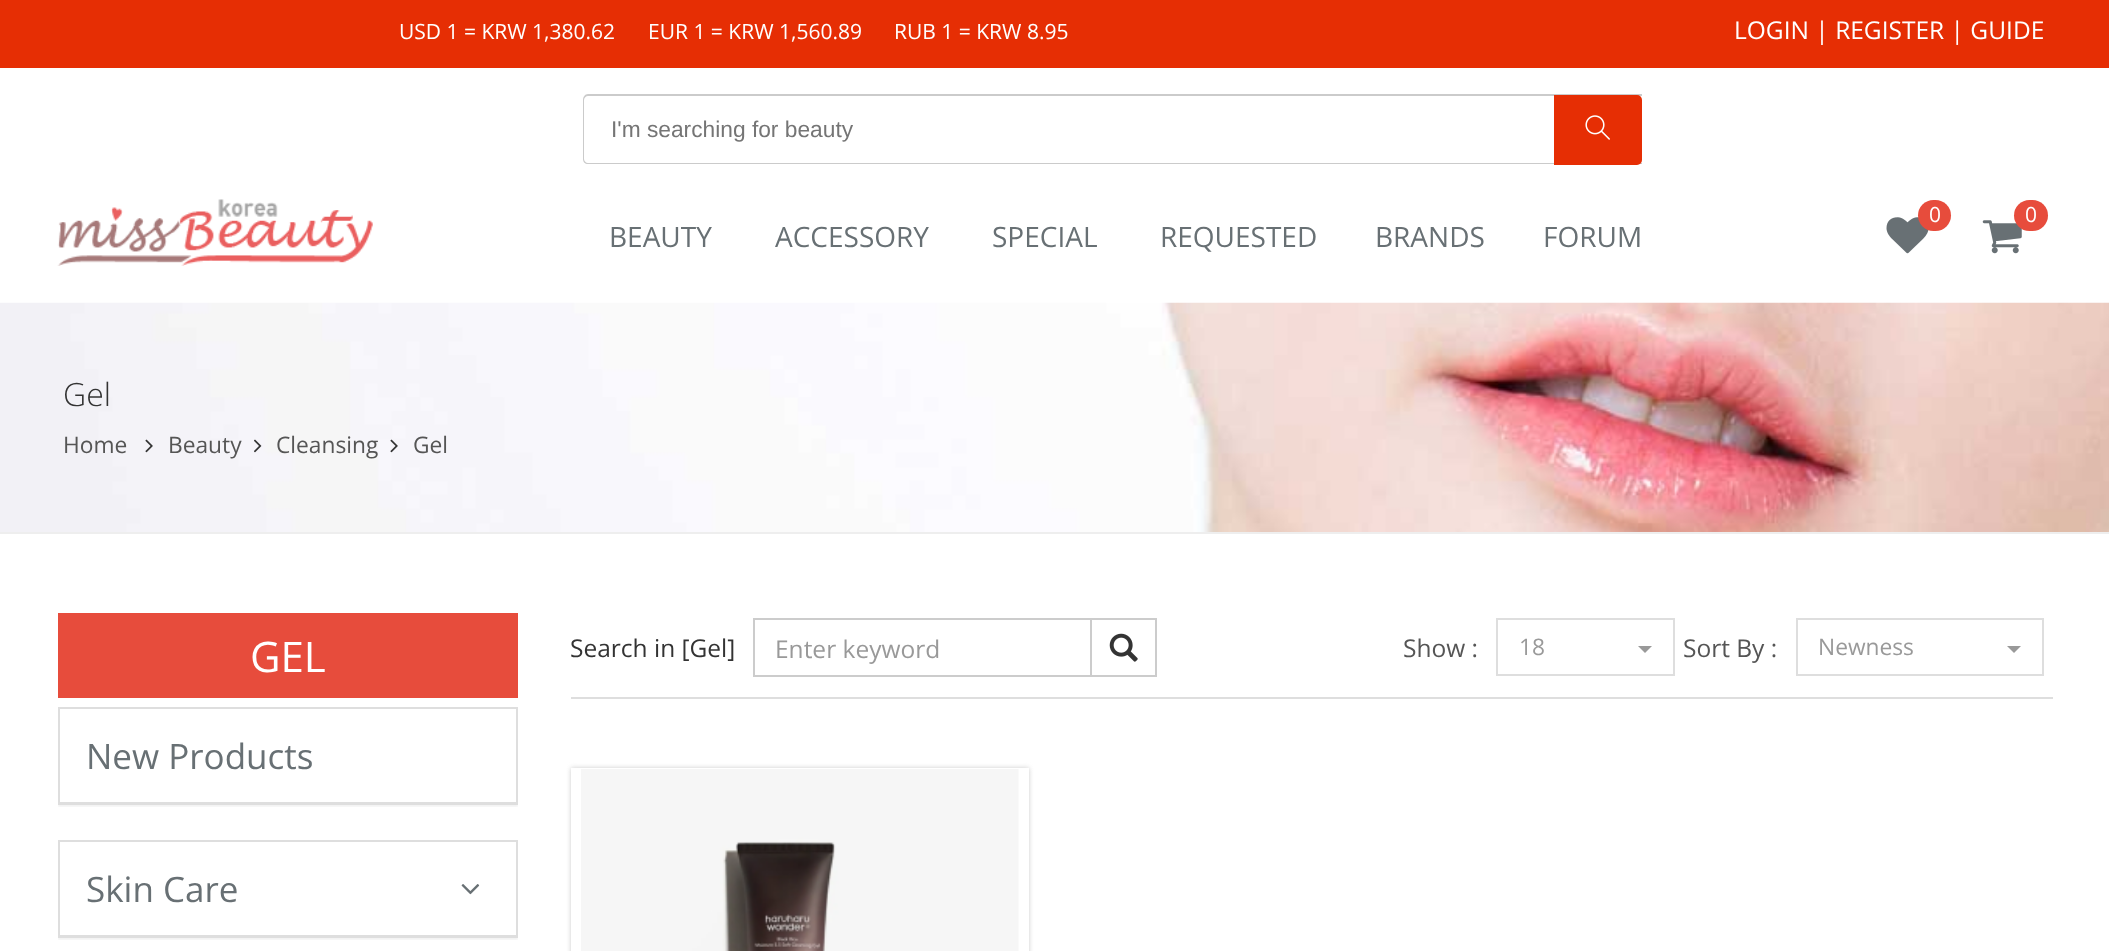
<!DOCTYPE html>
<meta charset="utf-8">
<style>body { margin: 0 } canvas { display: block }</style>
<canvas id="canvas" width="2109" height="951"></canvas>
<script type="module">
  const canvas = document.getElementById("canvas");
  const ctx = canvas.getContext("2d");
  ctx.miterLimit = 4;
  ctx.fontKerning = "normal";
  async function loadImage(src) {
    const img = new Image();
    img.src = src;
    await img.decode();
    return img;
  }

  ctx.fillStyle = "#ffffff";
  ctx.fillRect(0, 0, 2109, 951);
  ctx.fillStyle = "#e62e04";
  ctx.fillRect(0, 0, 2109, 68);
  ctx.font = "21px Open Sans";
  ctx.fillStyle = "#ffffff";
  ctx.fillText("USD 1 = KRW 1,380.62", 399, 39);
  ctx.fillText("EUR 1 = KRW 1,560.89", 648, 39);
  ctx.fillText("RUB 1 = KRW 8.95", 894, 39);
  ctx.font = "24.5px Open Sans";
  ctx.fillText("LOGIN | REGISTER | GUIDE", 1734, 39);
  ctx.fillStyle = "#cbcbcb";
  ctx.beginPath();
  ctx.moveTo(588, 94);
  ctx.lineTo(1642, 94);
  ctx.lineTo(1642, 164);
  ctx.lineTo(588, 164);
  ctx.bezierCurveTo(585, 164, 583, 162, 583, 159);
  ctx.lineTo(583, 100);
  ctx.bezierCurveTo(583, 97, 585, 94, 588, 94);
  ctx.closePath();
  ctx.moveTo(588, 96);
  ctx.lineTo(1642, 96);
  ctx.lineTo(1642, 163);
  ctx.lineTo(588, 163);
  ctx.bezierCurveTo(586, 163, 584, 161, 584, 159);
  ctx.lineTo(584, 100);
  ctx.bezierCurveTo(584, 98, 586, 96, 588, 96);
  ctx.closePath();
  ctx.fill("evenodd");
  ctx.font = "22.75px Liberation Sans";
  ctx.fillStyle = "#757575";
  ctx.fillText("I'm searching for beauty", 611, 137);
  ctx.fillStyle = "#e62e04";
  ctx.beginPath();
  ctx.roundRect(1554, 95, 88, 70, [0, 5, 5, 0]);
  ctx.fill();
  ctx.drawImage(await loadImage("img1.png"), 1585, 115, 25, 25);
  ctx.drawImage(await loadImage("img2.png"), 57, 199, 316, 67);
  ctx.drawImage(await loadImage("img3.png"), 1886, 217, 43, 37);
  ctx.fillStyle = "#e74c3c";
  ctx.beginPath();
  ctx.roundRect(1918, 200, 33, 31, 15.5);
  ctx.fill();
  ctx.font = "21px Open Sans";
  ctx.fillStyle = "#ffffff";
  ctx.fillText("0", 1929, 222);
  ctx.drawImage(await loadImage("img4.png"), 1982, 220, 40, 34);
  ctx.fillStyle = "#e74c3c";
  ctx.beginPath();
  ctx.roundRect(2014, 200, 34, 31, 15.5);
  ctx.fill();
  ctx.fillStyle = "#ffffff";
  ctx.fillText("0", 2025, 222);
  ctx.font = "28px Open Sans";
  ctx.fillStyle = "#687074";
  ctx.fillText("BEAUTY", 609, 247);
  ctx.fillText("ACCESSORY", 775, 247);
  ctx.fillText("SPECIAL", 992, 247);
  ctx.fillText("REQUESTED", 1160, 247);
  ctx.fillText("BRANDS", 1375, 247);
  ctx.fillText("FORUM", 1543, 247);
  ctx.drawImage(await loadImage("img5.png"), 0, 302, 2109, 230);
  ctx.fillStyle = "#eeeeee";
  ctx.fillRect(0, 532, 2109, 2);
  ctx.font = "300 32px Open Sans";
  ctx.fillStyle = "#333333";
  ctx.fillText("Gel", 63, 406);
  ctx.font = "22.75px Open Sans";
  ctx.fillStyle = "#555555";
  ctx.fillText("Home", 63, 453);
  ctx.drawImage(await loadImage("img6.png"), 145, 439, 8, 14);
  ctx.fillText("Beauty", 168, 453);
  ctx.drawImage(await loadImage("img7.png"), 254, 439, 8, 14);
  ctx.fillText("Cleansing", 276, 453);
  ctx.drawImage(await loadImage("img8.png"), 390, 439, 8, 14);
  ctx.fillText("Gel", 413, 453);
  ctx.fillStyle = "#e74c3c";
  ctx.fillRect(58, 613, 460, 85);
  ctx.font = "42px Open Sans";
  ctx.fillStyle = "#ffffff";
  ctx.fillText("GEL", 250, 672);
  ctx.save();
  ctx.beginPath();
  ctx.rect(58, 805, 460, 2);
  ctx.clip();
  ctx.fillStyle = "rgba(0, 0, 0, 0.05)";
  ctx.filter = "blur(1px)";
  ctx.beginPath();
  ctx.rect(58, 709, 460, 98);
  ctx.fill();
  ctx.filter = "none";
  ctx.restore();
  ctx.strokeStyle = "#dedede";
  ctx.lineWidth = 2;
  ctx.strokeRect(59, 708, 458, 96);
  ctx.fillStyle = "#dedede";
  ctx.fillRect(60, 802, 456, 1);
  ctx.font = "35px Open Sans";
  ctx.fillStyle = "#687074";
  ctx.fillText("New Products", 86, 769);
  ctx.save();
  ctx.beginPath();
  ctx.rect(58, 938, 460, 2);
  ctx.clip();
  ctx.fillStyle = "rgba(0, 0, 0, 0.05)";
  ctx.filter = "blur(1px)";
  ctx.beginPath();
  ctx.rect(58, 842, 460, 98);
  ctx.fill();
  ctx.filter = "none";
  ctx.restore();
  ctx.strokeRect(59, 841, 458, 96);
  ctx.fillStyle = "#dedede";
  ctx.fillRect(60, 935, 456, 1);
  ctx.fillStyle = "#687074";
  ctx.fillText("Skin Care", 86, 902);
  ctx.drawImage(await loadImage("img9.png"), 461, 884, 19, 11);
  ctx.font = "24.5px Open Sans";
  ctx.fillStyle = "#333333";
  ctx.fillText("Search in [Gel]", 570, 657);
  ctx.strokeStyle = "#cccccc";
  ctx.strokeRect(1091, 619, 65, 57);
  ctx.strokeRect(754, 619, 337, 57);
  ctx.fillStyle = "#999999";
  ctx.fillText("Enter keyword", 775, 658);
  ctx.drawImage(await loadImage("img10.png"), 1109, 633, 29, 29);
  ctx.fillStyle = "#555555";
  ctx.fillText("Show :", 1403, 657);
  ctx.strokeStyle = "#dedede";
  ctx.strokeRect(1497, 619, 177, 56);
  ctx.font = "22.75px Open Sans";
  ctx.fillStyle = "#999999";
  ctx.fillText("18", 1519, 655);
  ctx.beginPath();
  ctx.moveTo(1638, 646);
  ctx.lineTo(1652, 646);
  ctx.lineTo(1645, 653);
  ctx.closePath();
  ctx.fill();
  ctx.font = "24.5px Open Sans";
  ctx.fillStyle = "#555555";
  ctx.fillText("Sort By :", 1683, 657);
  ctx.strokeRect(1797, 619, 246, 56);
  ctx.font = "22.75px Open Sans";
  ctx.fillStyle = "#999999";
  ctx.fillText("Newness", 1818, 655);
  ctx.beginPath();
  ctx.moveTo(2007, 646);
  ctx.lineTo(2021, 646);
  ctx.lineTo(2014, 653);
  ctx.closePath();
  ctx.fill();
  ctx.fillStyle = "#dedede";
  ctx.fillRect(571, 697, 1482, 2);
  ctx.save();
  ctx.beginPath();
  ctx.moveTo(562, 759);
  ctx.lineTo(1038, 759);
  ctx.lineTo(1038, 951);
  ctx.lineTo(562, 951);
  ctx.closePath();
  ctx.moveTo(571, 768);
  ctx.lineTo(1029, 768);
  ctx.lineTo(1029, 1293);
  ctx.lineTo(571, 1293);
  ctx.closePath();
  ctx.clip("evenodd");
  ctx.fillStyle = "#cccccc";
  ctx.filter = "blur(2.5px)";
  ctx.beginPath();
  ctx.rect(571, 768, 458, 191);
  ctx.fill();
  ctx.filter = "none";
  ctx.restore();
  ctx.drawImage(await loadImage("img11.png"), 581, 769, 438, 182);
</script>
